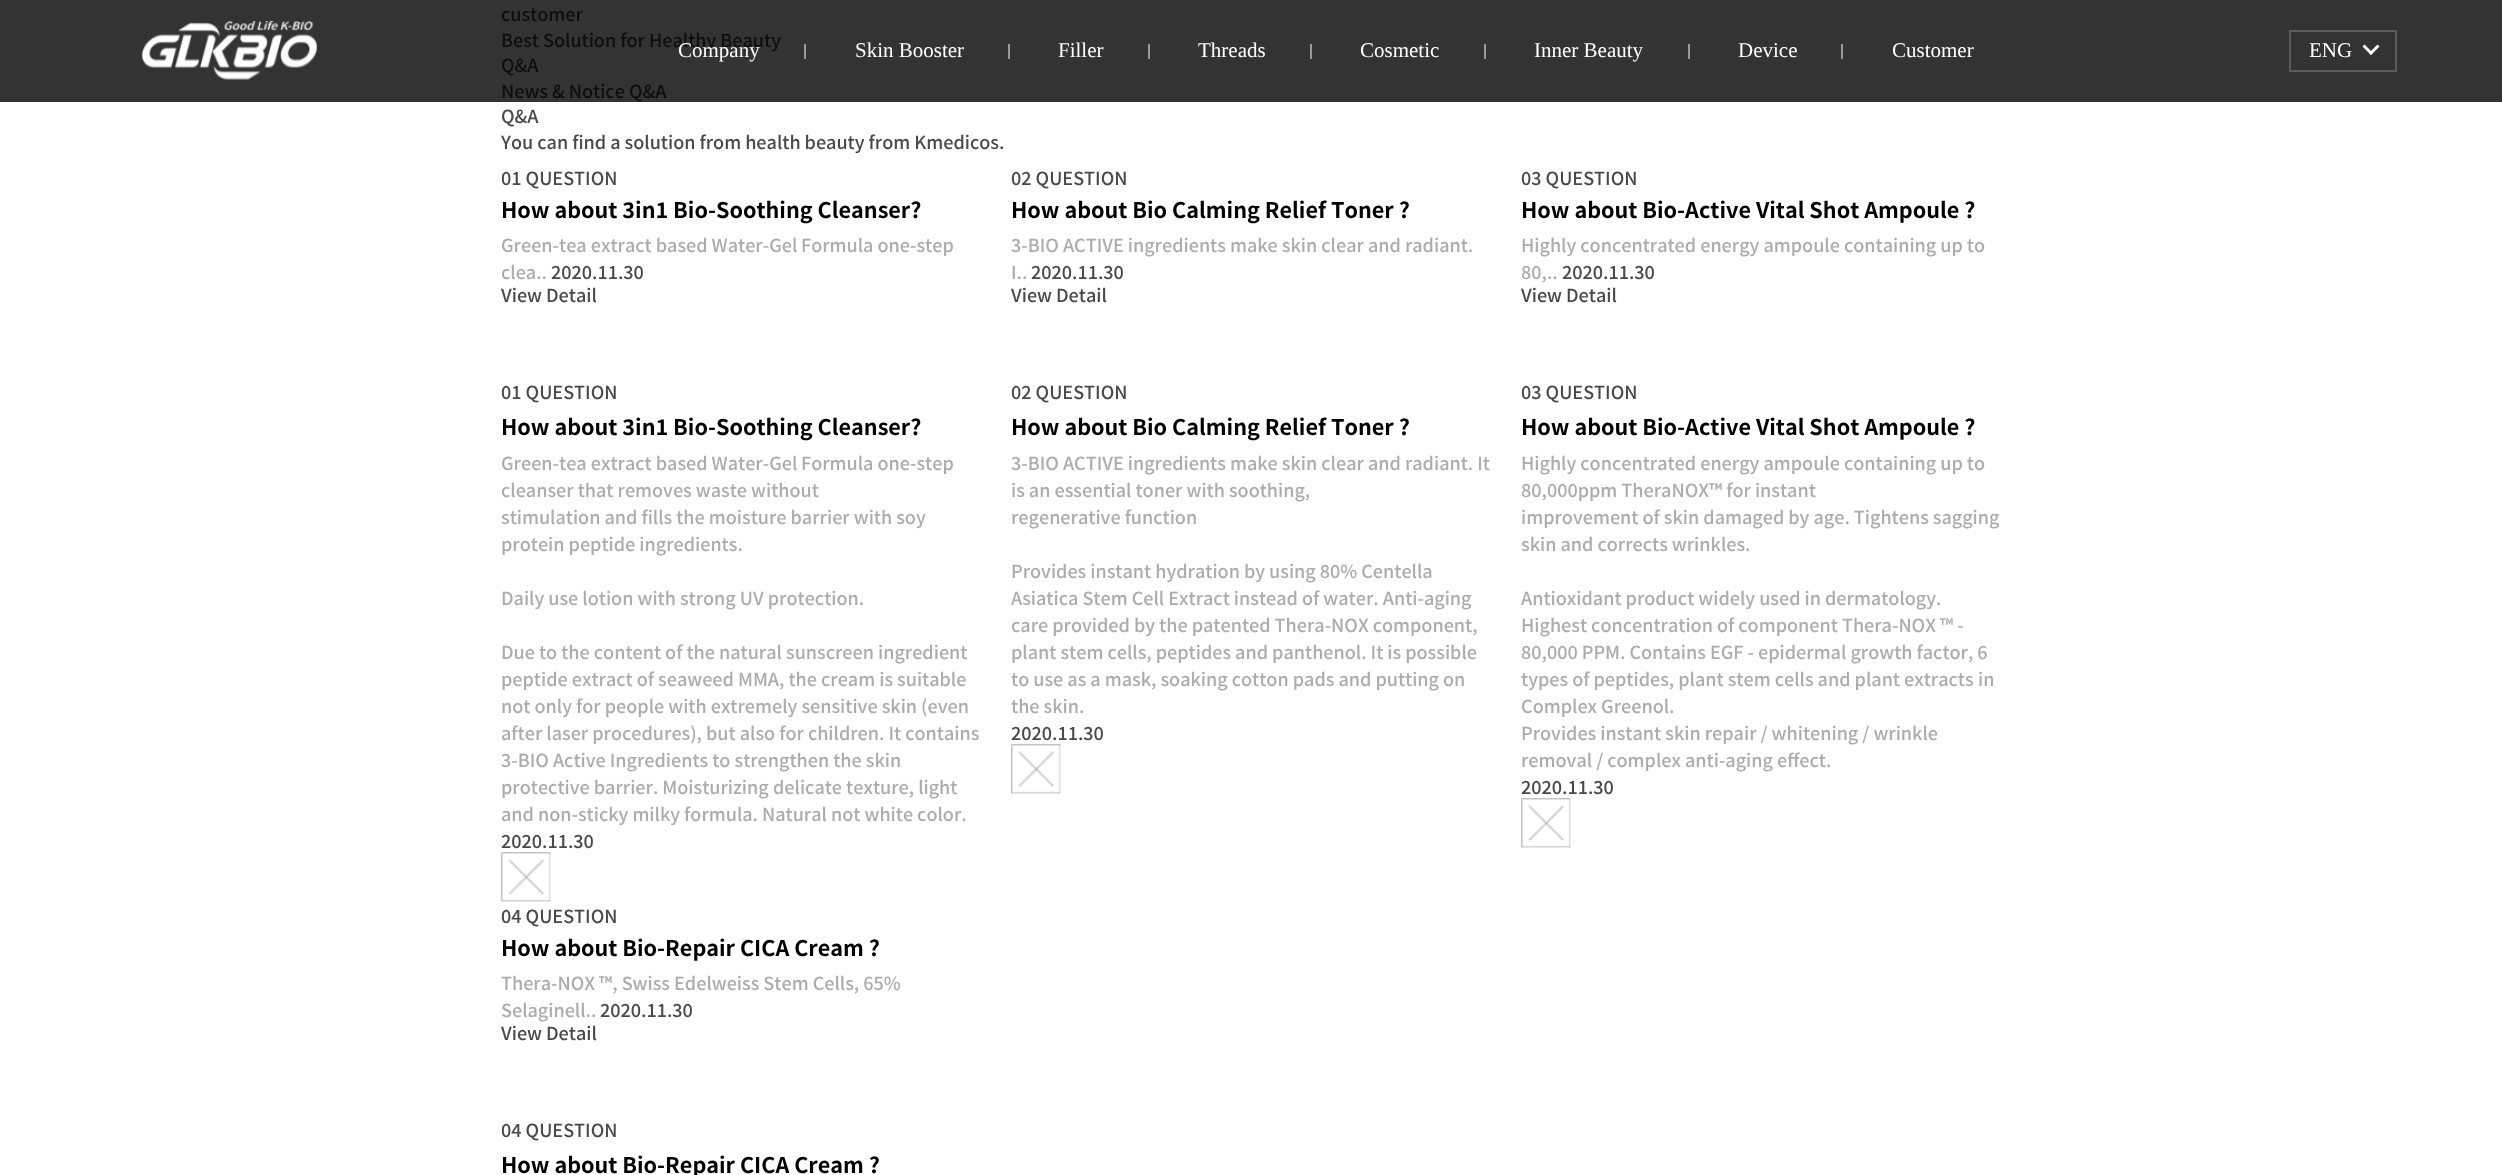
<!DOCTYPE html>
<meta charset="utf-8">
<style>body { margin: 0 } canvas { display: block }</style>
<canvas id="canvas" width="2502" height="1175"></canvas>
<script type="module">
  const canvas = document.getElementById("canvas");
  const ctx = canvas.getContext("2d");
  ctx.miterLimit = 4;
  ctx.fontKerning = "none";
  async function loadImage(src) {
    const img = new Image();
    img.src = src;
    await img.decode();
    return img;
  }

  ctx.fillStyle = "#ffffff";
  ctx.fillRect(0, 0, 2502, 1175);
  ctx.fillStyle = "#333333";
  ctx.fillRect(0, 0, 2502, 102);
  ctx.font = "500 18px Noto Sans KR";
  ctx.fillStyle = "#0f0e0f";
  ctx.fillText("customer", 501, 21);
  ctx.fillText("Best Solution for Healthy Beauty", 501, 47);
  ctx.fillText("Q&A", 501, 72);
  ctx.fillText("News & Notice Q&A", 501, 98);
  ctx.fillStyle = "#49484b";
  ctx.fillText("Q&A", 501, 123);
  ctx.fillText("You can find a solution from health beauty from Kmedicos.", 501, 149);
  ctx.fillText("01 QUESTION", 501, 185);
  ctx.font = "bold 21.6px Noto Sans KR";
  ctx.fillStyle = "#000000";
  ctx.fillText("How about 3in1 Bio-Soothing Cleanser?", 501, 218);
  ctx.font = "500 18px Noto Sans KR";
  ctx.fillStyle = "#acacac";
  ctx.fillText("Green-tea extract based Water-Gel", 501, 252);
  ctx.fillText("Formula one-step", 801, 252);
  ctx.fillText("clea..", 501, 279);
  ctx.fillStyle = "#49484b";
  ctx.fillText("2020.11.30", 551, 279);
  ctx.fillText("View Detail", 501, 302);
  ctx.fillText("01 QUESTION", 501, 399);
  ctx.font = "bold 21.6px Noto Sans KR";
  ctx.fillStyle = "#000000";
  ctx.fillText("How about 3in1 Bio-Soothing Cleanser?", 501, 435);
  ctx.font = "500 18px Noto Sans KR";
  ctx.fillStyle = "#acacac";
  ctx.fillText("Green-tea extract based Water-Gel", 501, 470);
  ctx.fillText("Formula one-step", 801, 470);
  ctx.fillText("cleanser that removes waste without", 501, 497);
  ctx.fillText("stimulation and fills the moisture barrier with soy", 501, 524);
  ctx.fillText("protein peptide ingredients.", 501, 551);
  ctx.fillText("Daily use lotion with strong UV protection.", 501, 605);
  ctx.fillText("Due to the content of the natural sunscreen ingredient", 501, 659);
  ctx.fillText("peptide extract of seaweed MMA, the cream is suitable", 501, 686);
  ctx.fillText("not only for people with extremely sensitive skin (even", 501, 713);
  ctx.fillText("after laser procedures), but also for children. It contains", 501, 740);
  ctx.fillText("3-BIO Active Ingredients to strengthen the skin", 501, 767);
  ctx.fillText("protective barrier. Moisturizing", 501, 794);
  ctx.fillText("delicate texture, light", 773, 794);
  ctx.fillText("and non-sticky milky formula. Natural not white color.", 501, 821);
  ctx.fillStyle = "#49484b";
  ctx.fillText("2020.11.30", 501, 848);
  ctx.drawImage(await loadImage("img1.png"), 501, 852, 50, 50);
  ctx.fillText("02 QUESTION", 1011, 185);
  ctx.font = "bold 21.6px Noto Sans KR";
  ctx.fillStyle = "#000000";
  ctx.fillText("How about Bio Calming Relief Toner ?", 1011, 218);
  ctx.font = "500 18px Noto Sans KR";
  ctx.fillStyle = "#acacac";
  ctx.fillText("3-BIO ACTIVE ingredients make skin clear and radiant.", 1011, 252);
  ctx.fillText("I..", 1011, 279);
  ctx.fillStyle = "#49484b";
  ctx.fillText("2020.11.30", 1031, 279);
  ctx.fillText("View Detail", 1011, 302);
  ctx.fillText("02 QUESTION", 1011, 399);
  ctx.font = "bold 21.6px Noto Sans KR";
  ctx.fillStyle = "#000000";
  ctx.fillText("How about Bio Calming Relief Toner ?", 1011, 435);
  ctx.font = "500 18px Noto Sans KR";
  ctx.fillStyle = "#acacac";
  ctx.fillText("3-BIO ACTIVE ingredients make skin clear and radiant. It", 1011, 470);
  ctx.fillText("is an essential toner with soothing,", 1011, 497);
  ctx.fillText("regenerative function", 1011, 524);
  ctx.fillText("Provides instant hydration by using 80% Centella", 1011, 578);
  ctx.fillText("Asiatica Stem Cell Extract instead", 1011, 605);
  ctx.fillText("of water. Anti-aging", 1302, 605);
  ctx.fillText("care provided by the patented Thera-NOX component,", 1011, 632);
  ctx.fillText("plant stem cells, peptides and panthenol. It is possible", 1011, 659);
  ctx.fillText("to use as a mask, soaking cotton pads and putting on", 1011, 686);
  ctx.fillText("the skin.", 1011, 713);
  ctx.fillStyle = "#49484b";
  ctx.fillText("2020.11.30", 1011, 740);
  ctx.drawImage(await loadImage("img2.png"), 1011, 744, 50, 50);
  ctx.fillText("03 QUESTION", 1521, 185);
  ctx.font = "bold 21.6px Noto Sans KR";
  ctx.fillStyle = "#000000";
  ctx.fillText("How about Bio-Active Vital Shot Ampoule ?", 1521, 218);
  ctx.font = "500 18px Noto Sans KR";
  ctx.fillStyle = "#acacac";
  ctx.fillText("Highly concentrated energy ampoule containing up to", 1521, 252);
  ctx.fillText("80,..", 1521, 279);
  ctx.fillStyle = "#49484b";
  ctx.fillText("2020.11.30", 1562, 279);
  ctx.fillText("View Detail", 1521, 302);
  ctx.fillText("03 QUESTION", 1521, 399);
  ctx.font = "bold 21.6px Noto Sans KR";
  ctx.fillStyle = "#000000";
  ctx.fillText("How about Bio-Active Vital Shot Ampoule ?", 1521, 435);
  ctx.font = "500 18px Noto Sans KR";
  ctx.fillStyle = "#acacac";
  ctx.fillText("Highly concentrated energy ampoule containing up to", 1521, 470);
  ctx.fillText("80,000ppm TheraNOX™ for instant", 1521, 497);
  ctx.fillText("improvement of skin damaged by age. Tightens sagging", 1521, 524);
  ctx.fillText("skin and corrects wrinkles.", 1521, 551);
  ctx.fillText("Antioxidant product widely used in dermatology.", 1521, 605);
  ctx.fillText("Highest concentration of component Thera-NOX", 1521, 632);
  ctx.fillText("™ -", 1940, 632);
  ctx.fillText("80,000 PPM. Contains EGF - epidermal growth factor, 6", 1521, 659);
  ctx.fillText("types of peptides, plant stem cells and plant extracts", 1521, 686);
  ctx.fillText("in", 1978, 686);
  ctx.fillText("Complex Greenol.", 1521, 713);
  ctx.fillText("Provides instant skin repair / whitening / wrinkle", 1521, 740);
  ctx.fillText("removal / complex anti-aging effect.", 1521, 767);
  ctx.fillStyle = "#49484b";
  ctx.fillText("2020.11.30", 1521, 794);
  ctx.drawImage(await loadImage("img3.png"), 1521, 798, 50, 50);
  ctx.fillText("04 QUESTION", 501, 923);
  ctx.font = "bold 21.6px Noto Sans KR";
  ctx.fillStyle = "#000000";
  ctx.fillText("How about Bio-Repair CICA Cream ?", 501, 956);
  ctx.font = "500 18px Noto Sans KR";
  ctx.fillStyle = "#acacac";
  ctx.fillText("Thera-NOX ™, Swiss Edelweiss Stem Cells, 65%", 501, 990);
  ctx.fillText("Selaginell..", 501, 1017);
  ctx.fillStyle = "#49484b";
  ctx.fillText("2020.11.30", 600, 1017);
  ctx.fillText("View Detail", 501, 1040);
  ctx.fillText("04 QUESTION", 501, 1137);
  ctx.font = "bold 21.6px Noto Sans KR";
  ctx.fillStyle = "#000000";
  ctx.fillText("How about Bio-Repair CICA Cream ?", 501, 1173);
  ctx.drawImage(await loadImage("img4.png"), 141, 21, 176, 59);
  ctx.font = "21px Liberation Serif";
  ctx.fillStyle = "#ffffff";
  ctx.fillText("Company", 678, 57);
  ctx.fillStyle = "#999999";
  ctx.fillRect(804, 44, 2, 15);
  ctx.fillStyle = "#ffffff";
  ctx.fillText("Skin Booster", 855, 57);
  ctx.fillStyle = "#999999";
  ctx.fillRect(1008, 44, 2, 15);
  ctx.fillStyle = "#ffffff";
  ctx.fillText("Filler", 1058, 57);
  ctx.fillStyle = "#999999";
  ctx.fillRect(1148, 44, 2, 15);
  ctx.fillStyle = "#ffffff";
  ctx.fillText("Threads", 1198, 57);
  ctx.fillStyle = "#999999";
  ctx.fillRect(1310, 44, 2, 15);
  ctx.fillStyle = "#ffffff";
  ctx.fillText("Cosmetic", 1360, 57);
  ctx.fillStyle = "#999999";
  ctx.fillRect(1484, 44, 2, 15);
  ctx.fillStyle = "#ffffff";
  ctx.fillText("Inner Beauty", 1534, 57);
  ctx.fillStyle = "#999999";
  ctx.fillRect(1688, 44, 2, 15);
  ctx.fillStyle = "#ffffff";
  ctx.fillText("Device", 1738, 57);
  ctx.fillStyle = "#999999";
  ctx.fillRect(1841, 44, 2, 15);
  ctx.fillStyle = "#ffffff";
  ctx.fillText("Customer", 1892, 57);
  ctx.strokeStyle = "#5c5c5c";
  ctx.lineWidth = 2;
  ctx.strokeRect(2290, 31, 106, 40);
  ctx.fillText("ENG", 2309, 57);
  ctx.beginPath();
  ctx.moveTo(2379.5, 46.5);
  ctx.lineTo(2371, 55);
  ctx.lineTo(2369, 53);
  ctx.lineTo(2377.5, 44.5);
  ctx.closePath();
  ctx.fill();
  ctx.beginPath();
  ctx.moveTo(2373, 53);
  ctx.lineTo(2371, 55);
  ctx.lineTo(2362.5, 46.5);
  ctx.lineTo(2364.5, 44.5);
  ctx.closePath();
  ctx.fill();
</script>
